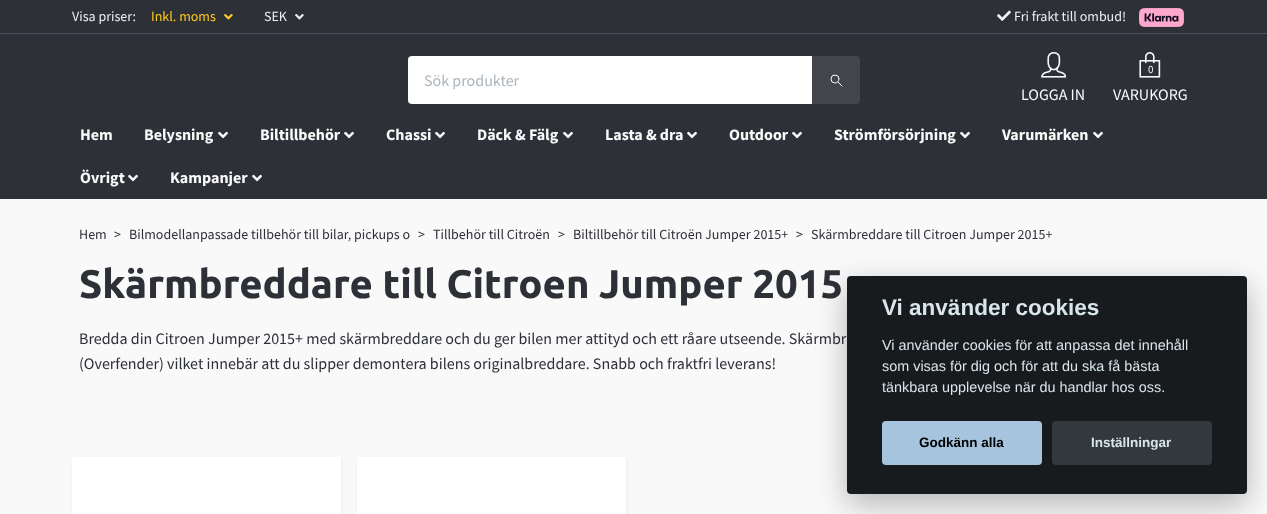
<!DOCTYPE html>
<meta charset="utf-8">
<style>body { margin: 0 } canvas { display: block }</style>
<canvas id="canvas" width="1267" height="514"></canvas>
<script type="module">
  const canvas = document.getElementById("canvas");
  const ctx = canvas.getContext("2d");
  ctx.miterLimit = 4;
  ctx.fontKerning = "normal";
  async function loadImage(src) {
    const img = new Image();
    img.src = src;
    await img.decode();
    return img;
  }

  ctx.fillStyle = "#f9f9fa";
  ctx.fillRect(0, 0, 1267, 514);
  ctx.fillStyle = "#2e3037";
  ctx.fillRect(0, 0, 1267, 33);
  ctx.fillStyle = "#4c4f5b";
  ctx.fillRect(0, 33, 1267, 1);
  ctx.font = "14px Source Sans Pro";
  ctx.fillStyle = "#eeeeee";
  ctx.fillText("Visa priser:", 72, 21);
  ctx.fillStyle = "#ffcc1f";
  ctx.fillText("Inkl. moms", 151, 21);
  ctx.drawImage(await loadImage("img1.png"), 224, 14, 9, 6);
  ctx.fillStyle = "#eeeeee";
  ctx.fillText("SEK", 264, 21);
  ctx.drawImage(await loadImage("img2.png"), 295, 14, 9, 6);
  ctx.drawImage(await loadImage("img3.png"), 997, 10, 14, 11);
  ctx.fillText("Fri frakt till ombud!", 1014, 21);
  ctx.drawImage(await loadImage("img4.png"), 1139, 8, 45, 19);
  ctx.fillStyle = "#2e3037";
  ctx.fillRect(0, 34, 1267, 165);
  ctx.fillStyle = "#ffffff";
  ctx.beginPath();
  ctx.roundRect(408, 56, 404, 48, [4, 0, 0, 4]);
  ctx.fill();
  ctx.font = "16px Source Sans Pro";
  ctx.fillStyle = "#adb5bd";
  ctx.fillText("Sök produkter", 424, 86);
  ctx.fillStyle = "#43454b";
  ctx.beginPath();
  ctx.roundRect(812, 56, 48, 48, [0, 4, 4, 0]);
  ctx.fill();
  ctx.beginPath();
  ctx.moveTo(838, 82);
  ctx.lineTo(842, 86);
  ctx.strokeStyle = "#fafafa";
  ctx.lineCap = "round";
  ctx.lineJoin = "round";
  ctx.stroke();
  ctx.beginPath();
  ctx.arc(835, 79, 4, 0, Math.PI * 2);
  ctx.stroke();
  ctx.drawImage(await loadImage("img5.png"), 1041, 52, 25, 26);
  ctx.fillStyle = "#f9f9f9";
  ctx.fillText("LOGGA IN", 1021, 100);
  ctx.drawImage(await loadImage("img6.png"), 1139, 52, 22, 26);
  ctx.font = "11px Source Sans Pro";
  ctx.fillText("0", 1148, 73);
  ctx.font = "16px Source Sans Pro";
  ctx.fillText("VARUKORG", 1113, 100);
  ctx.font = "bold 16px Source Sans Pro";
  ctx.fillText("Hem", 80, 140);
  ctx.fillText("Belysning", 144, 140);
  ctx.drawImage(await loadImage("img7.png"), 218, 131, 10, 8);
  ctx.fillText("Biltillbehör", 260, 140);
  ctx.drawImage(await loadImage("img7.png"), 344, 131, 10, 8);
  ctx.fillText("Chassi", 386, 140);
  ctx.drawImage(await loadImage("img7.png"), 435, 131, 10, 8);
  ctx.fillText("Däck & Fälg", 477, 140);
  ctx.drawImage(await loadImage("img7.png"), 563, 131, 10, 8);
  ctx.fillText("Lasta & dra", 605, 140);
  ctx.drawImage(await loadImage("img7.png"), 687, 131, 10, 8);
  ctx.fillText("Outdoor", 729, 140);
  ctx.drawImage(await loadImage("img7.png"), 792, 131, 10, 8);
  ctx.fillText("Strömförsörjning", 834, 140);
  ctx.drawImage(await loadImage("img7.png"), 960, 131, 10, 8);
  ctx.fillText("Varumärken", 1002, 140);
  ctx.drawImage(await loadImage("img7.png"), 1093, 131, 10, 8);
  ctx.fillText("Övrigt", 80, 183);
  ctx.drawImage(await loadImage("img7.png"), 128, 174, 10, 8);
  ctx.fillText("Kampanjer", 170, 183);
  ctx.drawImage(await loadImage("img7.png"), 252, 174, 10, 8);
  ctx.font = "14px Source Sans Pro";
  ctx.fillStyle = "#2e3038";
  ctx.fillText("Hem", 79, 239);
  ctx.fillText(">", 114, 239);
  ctx.fillText("Bilmodellanpassade tillbehör till bilar, pickups o", 129, 239);
  ctx.fillText(">", 418, 239);
  ctx.fillText("Tillbehör till Citroën", 433, 239);
  ctx.fillText(">", 558, 239);
  ctx.fillText("Biltillbehör till Citroën Jumper 2015+", 573, 239);
  ctx.fillText(">", 796, 239);
  ctx.fillText("Skärmbreddare till Citroen Jumper 2015+", 811, 239);
  ctx.font = "bold 40px Ubuntu";
  ctx.fillText("Skärmbreddare till Citroen Jumper 2015", 79, 298);
  ctx.font = "16px Source Sans Pro";
  ctx.fillText("Bredda din Citroen Jumper 2015+ med skärmbreddare och du ger bilen mer attityd och ett råare utseende. Skärmbr", 79, 344);
  ctx.fillText("(Overfender) vilket innebär att du slipper demontera bilens originalbreddare. Snabb och fraktfri leverans!", 79, 369);
  ctx.fillStyle = "rgba(0, 0, 0, 0.05)";
  ctx.filter = "blur(2px)";
  ctx.beginPath();
  ctx.rect(73, 459, 269, 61);
  ctx.fill();
  ctx.filter = "none";
  ctx.fillStyle = "#ffffff";
  ctx.fillRect(72, 457, 269, 57);
  ctx.fillStyle = "rgba(0, 0, 0, 0.05)";
  ctx.filter = "blur(2px)";
  ctx.beginPath();
  ctx.rect(358, 459, 269, 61);
  ctx.fill();
  ctx.filter = "none";
  ctx.fillStyle = "#ffffff";
  ctx.fillRect(357, 457, 269, 57);
  ctx.fillStyle = "rgba(2, 2, 3, 0.28)";
  ctx.filter = "blur(15px)";
  ctx.beginPath();
  ctx.roundRect(847, 286, 400, 218, 4);
  ctx.fill();
  ctx.filter = "none";
  ctx.fillStyle = "#181b1d";
  ctx.beginPath();
  ctx.roundRect(847, 276, 400, 218, 4);
  ctx.fill();
  ctx.font = "bold 22.5px Liberation Sans";
  ctx.fillStyle = "#d8e5ea";
  ctx.fillText("Vi använder cookies", 882, 315);
  ctx.font = "14.4px Liberation Sans";
  ctx.fillText("Vi använder cookies för att anpassa det innehåll", 882, 350);
  ctx.fillText("som visas för dig och för att du ska få bästa", 882, 371);
  ctx.fillText("tänkbara upplevelse när du handlar hos oss.", 882, 392);
  ctx.fillStyle = "#a6c4dd";
  ctx.beginPath();
  ctx.roundRect(882, 421, 160, 44, 4);
  ctx.fill();
  ctx.font = "bold 13.5px Liberation Sans";
  ctx.fillStyle = "#000000";
  ctx.fillText("Godkänn alla", 919, 447);
  ctx.fillStyle = "#33383c";
  ctx.beginPath();
  ctx.roundRect(1052, 421, 160, 44, 4);
  ctx.fill();
  ctx.fillStyle = "#d8e5ea";
  ctx.fillText("Inställningar", 1091, 447);
</script>
